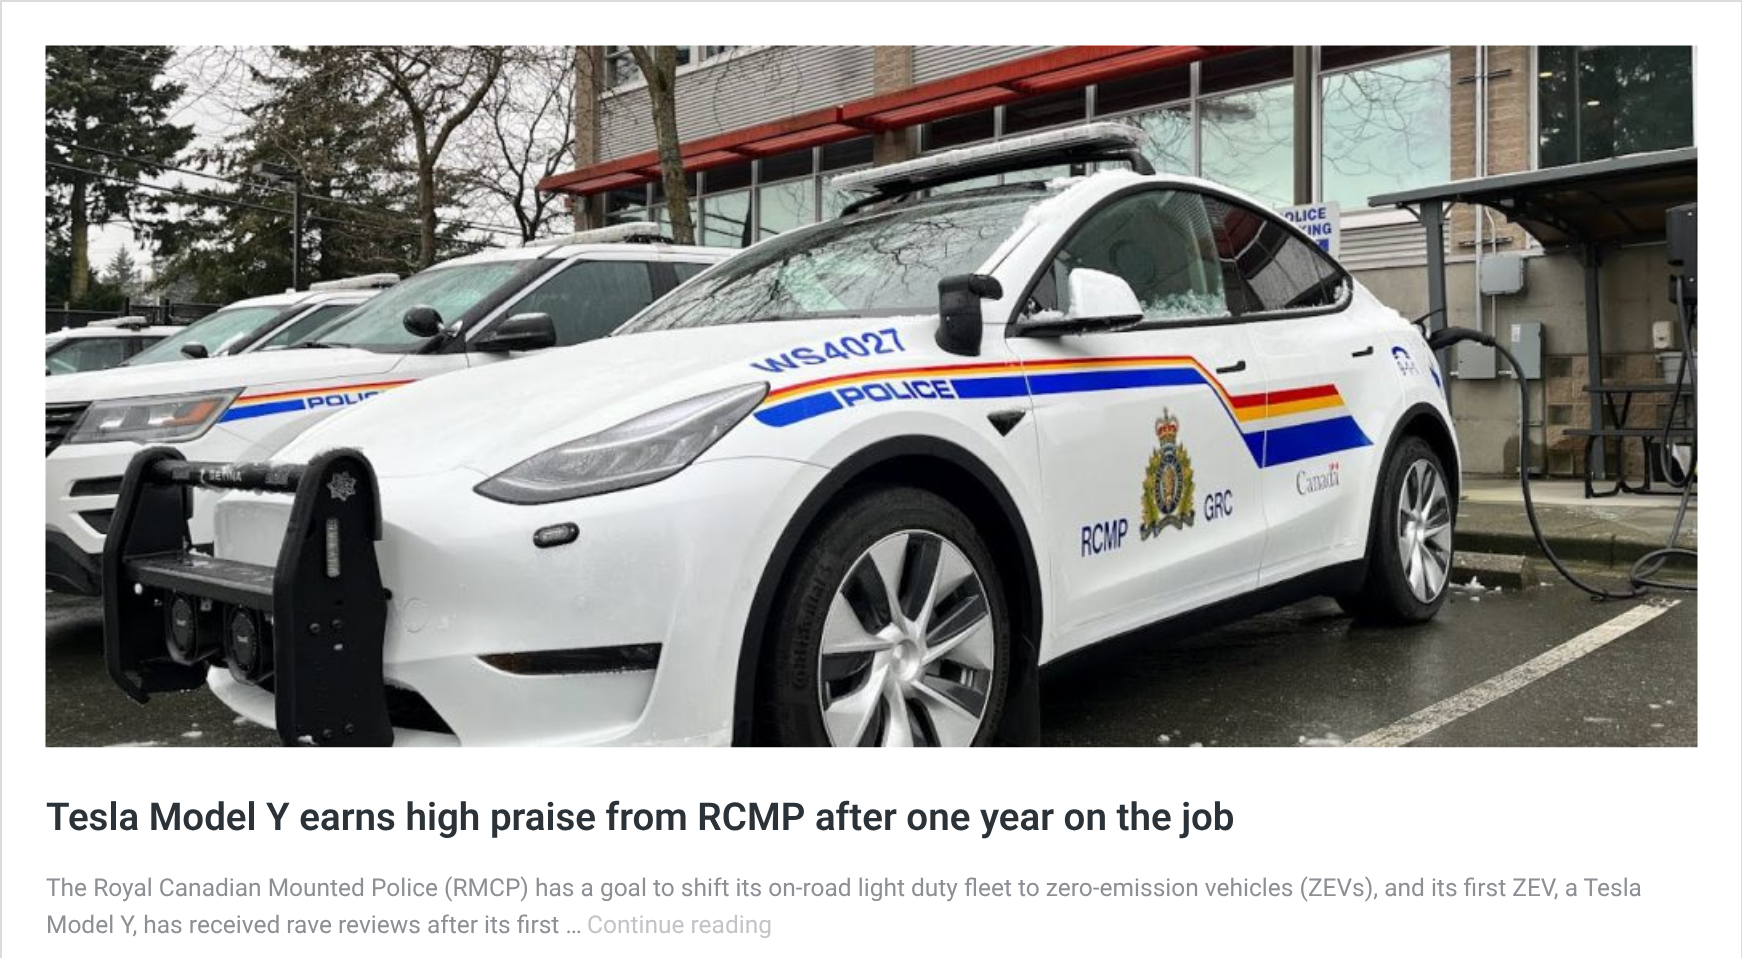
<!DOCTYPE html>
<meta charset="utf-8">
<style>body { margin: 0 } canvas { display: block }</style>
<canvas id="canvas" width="1742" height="958"></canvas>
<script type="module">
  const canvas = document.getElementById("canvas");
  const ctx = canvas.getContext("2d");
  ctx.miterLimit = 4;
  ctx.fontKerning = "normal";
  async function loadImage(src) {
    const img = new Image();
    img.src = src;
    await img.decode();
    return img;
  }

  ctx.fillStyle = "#ffffff";
  ctx.fillRect(0, 0, 1742, 958);
  ctx.strokeStyle = "#dcdcde";
  ctx.lineWidth = 2;
  ctx.strokeRect(1, 1, 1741, 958);
  ctx.drawImage(await loadImage("img1.png"), 45, 45, 1653, 703);
  ctx.font = "600 38.5px Roboto";
  ctx.fillStyle = "#2c3338";
  ctx.fillText("Tesla Model Y earns high praise from RCMP after one year on the job", 46, 830);
  ctx.font = "24.5px Roboto";
  ctx.fillStyle = "#8c8f94";
  ctx.fillText("The Royal Canadian Mounted Police (RMCP) has a goal to shift its on-road light duty fleet to zero-emission vehicles (ZEVs), and its first ZEV, a Tesla", 46, 896);
  ctx.fillText("Model Y, has received rave reviews after its first …", 46, 933);
  ctx.fillStyle = "#c3c4c7";
  ctx.fillText("Continue reading", 587, 933);
</script>
